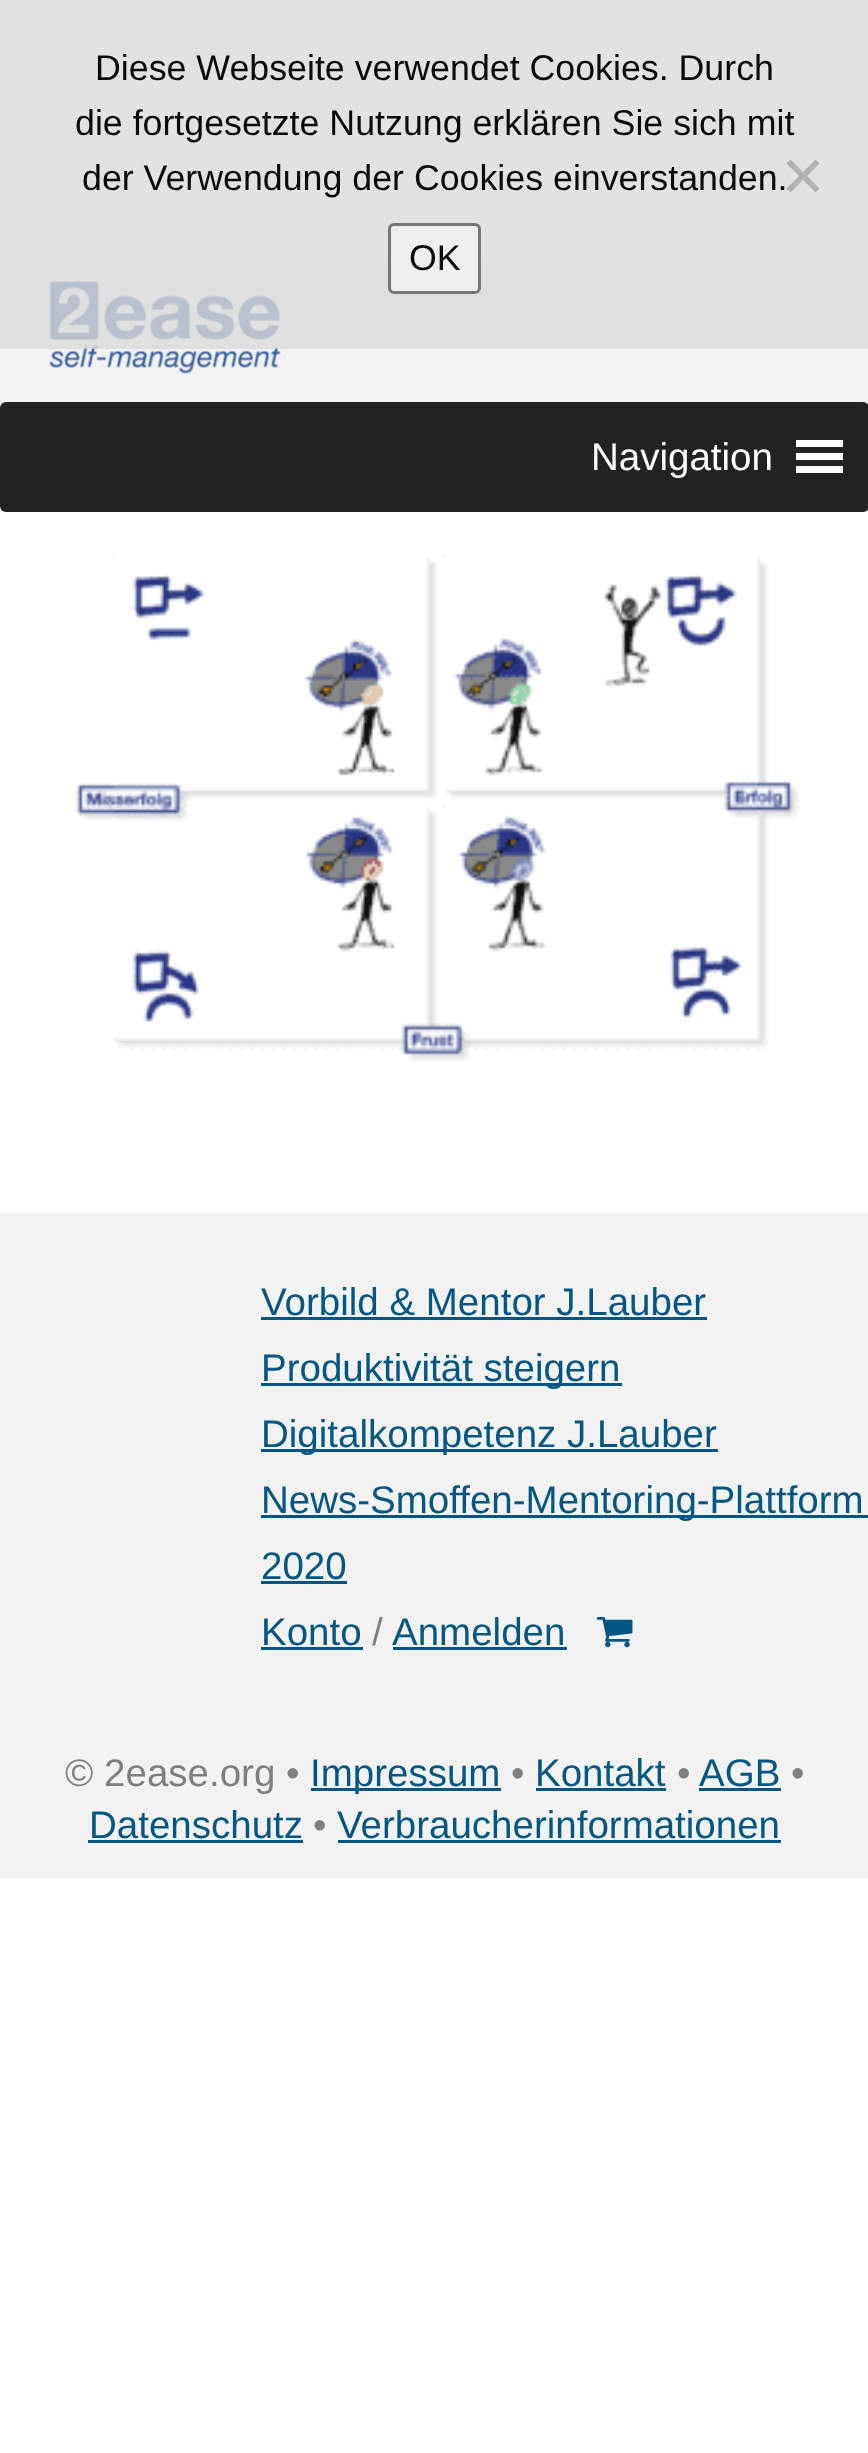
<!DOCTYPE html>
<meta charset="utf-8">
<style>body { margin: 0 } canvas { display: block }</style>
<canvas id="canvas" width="868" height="2453"></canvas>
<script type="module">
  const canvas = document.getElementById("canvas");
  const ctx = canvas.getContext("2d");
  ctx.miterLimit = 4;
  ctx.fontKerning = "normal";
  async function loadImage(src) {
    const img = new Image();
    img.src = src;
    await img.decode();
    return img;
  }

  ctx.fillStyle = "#ffffff";
  ctx.fillRect(0, 0, 868, 2453);
  ctx.fillStyle = "#f2f2f2";
  ctx.fillRect(0, 259, 868, 253);
  ctx.drawImage(await loadImage("img1.png"), 49, 280, 232, 94);
  ctx.fillStyle = "rgba(219, 219, 219, 0.8)";
  ctx.fillRect(0, 0, 868, 349);
  ctx.font = "35.75px Liberation Sans";
  ctx.fillStyle = "#0a0a0a";
  ctx.fillText("Diese Webseite verwendet Cookies. Durch", 95, 80);
  ctx.fillText("die fortgesetzte Nutzung erklären Sie sich mit", 75, 135);
  ctx.fillText("der Verwendung der Cookies einverstanden.", 82, 190);
  ctx.fillStyle = "#b1b1b1";
  ctx.beginPath();
  ctx.moveTo(815.5, 159.5);
  ctx.lineTo(819.5, 163.5);
  ctx.lineTo(790.5, 192.5);
  ctx.lineTo(786.5, 188.5);
  ctx.closePath();
  ctx.fill();
  ctx.beginPath();
  ctx.moveTo(786.5, 163.5);
  ctx.lineTo(790.5, 159.5);
  ctx.lineTo(819.5, 188.5);
  ctx.lineTo(815.5, 192.5);
  ctx.closePath();
  ctx.fill();
  ctx.fillStyle = "#efefef";
  ctx.beginPath();
  ctx.roundRect(389.5, 224.5, 90, 68, 4.5);
  ctx.fill();
  ctx.strokeStyle = "#767676";
  ctx.lineWidth = 3;
  ctx.stroke();
  ctx.fillStyle = "#0a0a0a";
  ctx.fillText("OK", 409, 270);
  ctx.fillStyle = "#222222";
  ctx.beginPath();
  ctx.roundRect(0, 402, 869, 110, 6);
  ctx.fill();
  ctx.font = "38.5px Liberation Sans";
  ctx.fillStyle = "#ffffff";
  ctx.fillText("Navigation", 591, 470);
  ctx.beginPath();
  ctx.moveTo(796, 473);
  ctx.lineTo(843, 473);
  ctx.lineTo(843, 466);
  ctx.lineTo(796, 466);
  ctx.closePath();
  ctx.moveTo(796, 440);
  ctx.lineTo(796, 447);
  ctx.lineTo(843, 447);
  ctx.lineTo(843, 440);
  ctx.closePath();
  ctx.moveTo(796, 460);
  ctx.lineTo(843, 460);
  ctx.lineTo(843, 453);
  ctx.lineTo(796, 453);
  ctx.closePath();
  ctx.fill();
  ctx.drawImage(await loadImage("img2.png"), 75, 555, 726, 507);
  ctx.fillStyle = "#f2f2f2";
  ctx.fillRect(0, 1213, 868, 665);
  ctx.fillStyle = "#035682";
  ctx.fillText("Vorbild & Mentor J.Lauber", 261, 1315);
  ctx.fillRect(261, 1317, 446, 3);
  ctx.fillRect(261, 1383, 361, 3);
  ctx.fillText("Produktivität steigern", 261, 1381);
  ctx.fillRect(261, 1449, 457, 3);
  ctx.fillText("Digitalkompetenz J.Lauber", 261, 1447);
  ctx.fillRect(261, 1515, 607, 3);
  ctx.fillText("News-Smoffen-Mentoring-Plattform", 261, 1513);
  ctx.fillText("2020", 261, 1579);
  ctx.fillRect(261, 1581, 86, 3);
  ctx.fillText("Konto", 261, 1645);
  ctx.fillRect(261, 1647, 102, 3);
  ctx.fillStyle = "#7f7f7f";
  ctx.fillText("/", 372, 1645);
  ctx.fillStyle = "#035682";
  ctx.fillText("Anmelden", 392, 1645);
  ctx.fillRect(393, 1647, 174, 3);
  ctx.drawImage(await loadImage("img3.png"), 596, 1617, 37, 31);
  ctx.fillStyle = "#7f7f7f";
  ctx.fillText("© 2ease.org •", 65, 1786);
  ctx.fillStyle = "#035682";
  ctx.fillRect(311, 1788, 190, 3);
  ctx.fillText("Impressum", 310, 1786);
  ctx.fillStyle = "#7f7f7f";
  ctx.fillText("•", 511, 1786);
  ctx.fillStyle = "#035682";
  ctx.fillText("Kontakt", 535, 1786);
  ctx.fillRect(536, 1788, 130, 3);
  ctx.fillStyle = "#7f7f7f";
  ctx.fillText("•", 677, 1786);
  ctx.fillStyle = "#035682";
  ctx.fillText("AGB", 699, 1786);
  ctx.fillRect(699, 1788, 82, 3);
  ctx.fillStyle = "#7f7f7f";
  ctx.fillText("•", 791, 1786);
  ctx.fillStyle = "#035682";
  ctx.fillText("Datenschutz", 89, 1838);
  ctx.fillRect(88, 1840, 215, 3);
  ctx.fillStyle = "#7f7f7f";
  ctx.fillText("•", 313, 1838);
  ctx.fillStyle = "#035682";
  ctx.fillText("Verbraucherinformationen", 337, 1838);
  ctx.fillRect(338, 1840, 443, 3);
</script>
